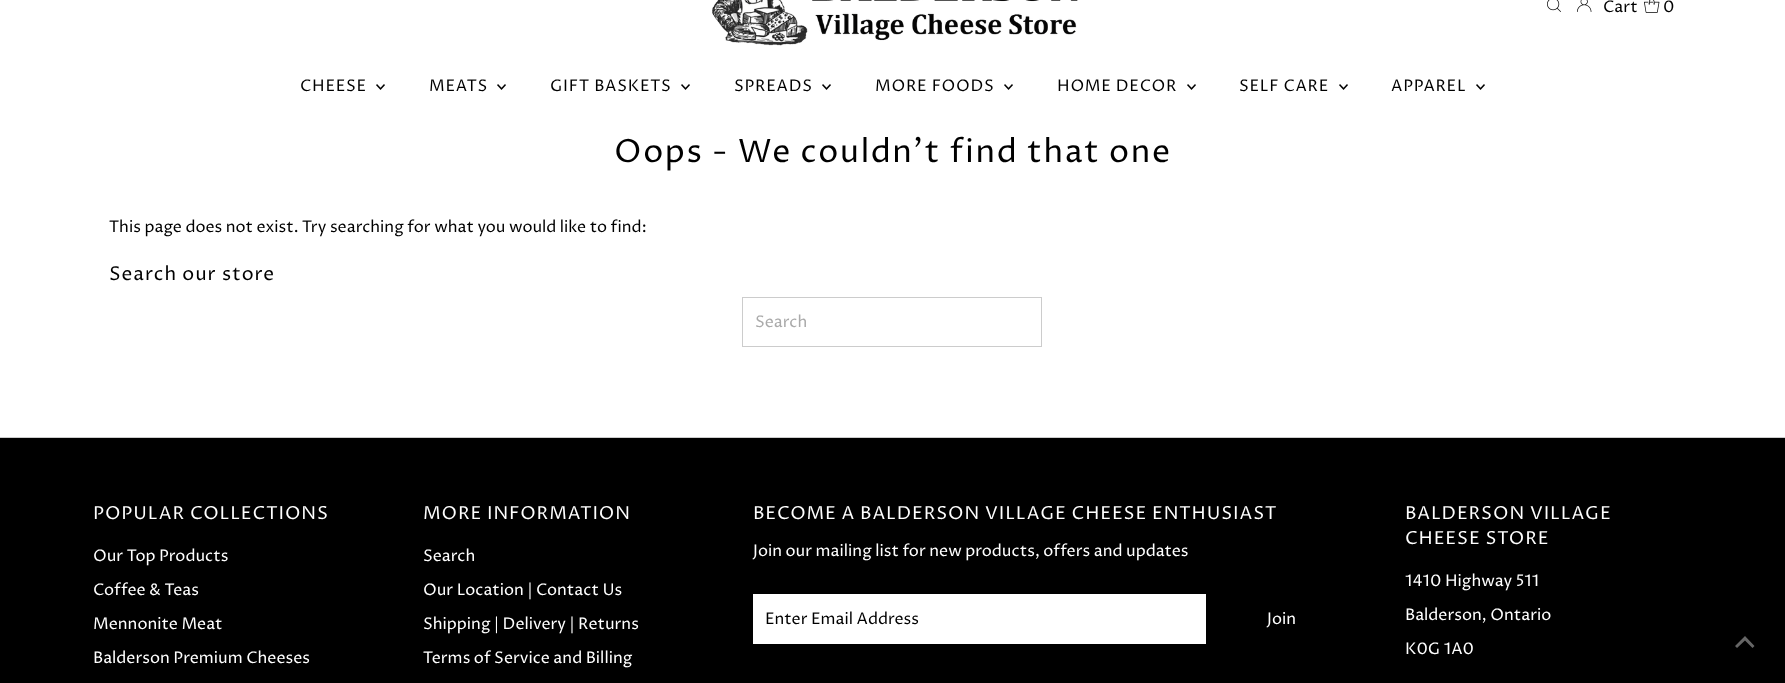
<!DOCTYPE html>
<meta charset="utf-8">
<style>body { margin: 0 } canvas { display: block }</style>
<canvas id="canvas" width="1785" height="683"></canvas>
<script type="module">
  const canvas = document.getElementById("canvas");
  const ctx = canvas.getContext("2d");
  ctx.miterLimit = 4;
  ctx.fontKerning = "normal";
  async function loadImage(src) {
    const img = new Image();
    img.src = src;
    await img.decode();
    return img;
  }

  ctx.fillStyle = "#ffffff";
  ctx.fillRect(0, 0, 1785, 683);
  ctx.drawImage(await loadImage("img1.png"), 712, 0, 366, 46);
  ctx.drawImage(await loadImage("img2.png"), 1547, 0, 14, 12);
  ctx.drawImage(await loadImage("img3.png"), 1577, 0, 15, 12);
  ctx.font = "16px Proza Libre";
  ctx.fillStyle = "#000000";
  ctx.fillText("Cart", 1603, 12);
  ctx.drawImage(await loadImage("img4.png"), 1644, 0, 16, 13);
  ctx.fillText("0", 1663, 12);
  ctx.letterSpacing = "0.75px";
  ctx.fillText("CHEESE", 300, 91);
  ctx.drawImage(await loadImage("img5.png"), 376, 84, 9, 6);
  ctx.fillText("MEATS", 429, 91);
  ctx.drawImage(await loadImage("img5.png"), 497, 84, 9, 6);
  ctx.fillText("GIFT BASKETS", 550, 91);
  ctx.drawImage(await loadImage("img5.png"), 681, 84, 9, 6);
  ctx.fillText("SPREADS", 734, 91);
  ctx.drawImage(await loadImage("img5.png"), 822, 84, 9, 6);
  ctx.fillText("MORE FOODS", 875, 91);
  ctx.drawImage(await loadImage("img5.png"), 1004, 84, 9, 6);
  ctx.fillText("HOME DECOR", 1057, 91);
  ctx.drawImage(await loadImage("img5.png"), 1187, 84, 9, 6);
  ctx.fillText("SELF CARE", 1239, 91);
  ctx.drawImage(await loadImage("img5.png"), 1339, 84, 9, 6);
  ctx.fillText("APPAREL", 1391, 91);
  ctx.drawImage(await loadImage("img5.png"), 1476, 84, 9, 6);
  ctx.letterSpacing = "1.6px";
  ctx.font = "32px Proza Libre";
  ctx.fillText("Oops - We couldn't find that one", 614, 162);
  ctx.letterSpacing = "0px";
  ctx.font = "16px Proza Libre";
  ctx.fillText("This page does not exist. Try searching for what you would like to find:", 109, 232);
  ctx.letterSpacing = "1px";
  ctx.font = "19px Proza Libre";
  ctx.fillText("Search our store", 109, 280);
  ctx.strokeStyle = "#cccccc";
  ctx.strokeRect(742.5, 297.5, 299, 49);
  ctx.letterSpacing = "0px";
  ctx.font = "16px Proza Libre";
  ctx.fillStyle = "#aaaaaa";
  ctx.fillText("Search", 755, 327);
  ctx.fillStyle = "#000000";
  ctx.fillRect(0, 438, 1785, 245);
  ctx.fillStyle = "#cccccc";
  ctx.fillRect(0, 437, 1785, 1);
  ctx.letterSpacing = "0.9px";
  ctx.font = "18px Proza Libre";
  ctx.fillStyle = "#ffffff";
  ctx.fillText("POPULAR COLLECTIONS", 93, 519);
  ctx.letterSpacing = "0px";
  ctx.font = "16px Proza Libre";
  ctx.fillText("Our Top Products", 93, 561);
  ctx.fillText("Coffee & Teas", 93, 595);
  ctx.fillText("Mennonite Meat", 93, 629);
  ctx.fillText("Balderson Premium Cheeses", 93, 663);
  ctx.letterSpacing = "0.9px";
  ctx.font = "18px Proza Libre";
  ctx.fillText("MORE INFORMATION", 423, 519);
  ctx.letterSpacing = "0px";
  ctx.font = "16px Proza Libre";
  ctx.fillText("Search", 423, 561);
  ctx.fillText("Our Location | Contact Us", 423, 595);
  ctx.fillText("Shipping | Delivery | Returns", 423, 629);
  ctx.fillText("Terms of Service and Billing", 423, 663);
  ctx.letterSpacing = "0.9px";
  ctx.font = "18px Proza Libre";
  ctx.fillText("BECOME A BALDERSON VILLAGE CHEESE ENTHUSIAST", 753, 519);
  ctx.letterSpacing = "0px";
  ctx.font = "16px Proza Libre";
  ctx.fillText("Join our mailing list for new products, offers and updates", 753, 556);
  ctx.fillRect(753, 594, 453, 50);
  ctx.fillStyle = "#000000";
  ctx.fillText("Enter Email Address", 765, 624);
  ctx.fillStyle = "#ffffff";
  ctx.fillText("Join", 1267, 624);
  ctx.letterSpacing = "0.9px";
  ctx.font = "18px Proza Libre";
  ctx.fillText("BALDERSON VILLAGE", 1405, 519);
  ctx.fillText("CHEESE STORE", 1405, 544);
  ctx.letterSpacing = "0px";
  ctx.font = "16px Proza Libre";
  ctx.fillText("1410 Highway 511", 1405, 586);
  ctx.fillText("Balderson, Ontario", 1405, 620);
  ctx.fillText("K0G 1A0", 1405, 654);
  ctx.fillStyle = "#666666";
  ctx.beginPath();
  ctx.moveTo(1745, 636);
  ctx.lineTo(1735, 646);
  ctx.lineTo(1737, 648);
  ctx.lineTo(1745, 640.5);
  ctx.lineTo(1752.5, 648);
  ctx.lineTo(1754.5, 646);
  ctx.closePath();
  ctx.fill();
</script>
